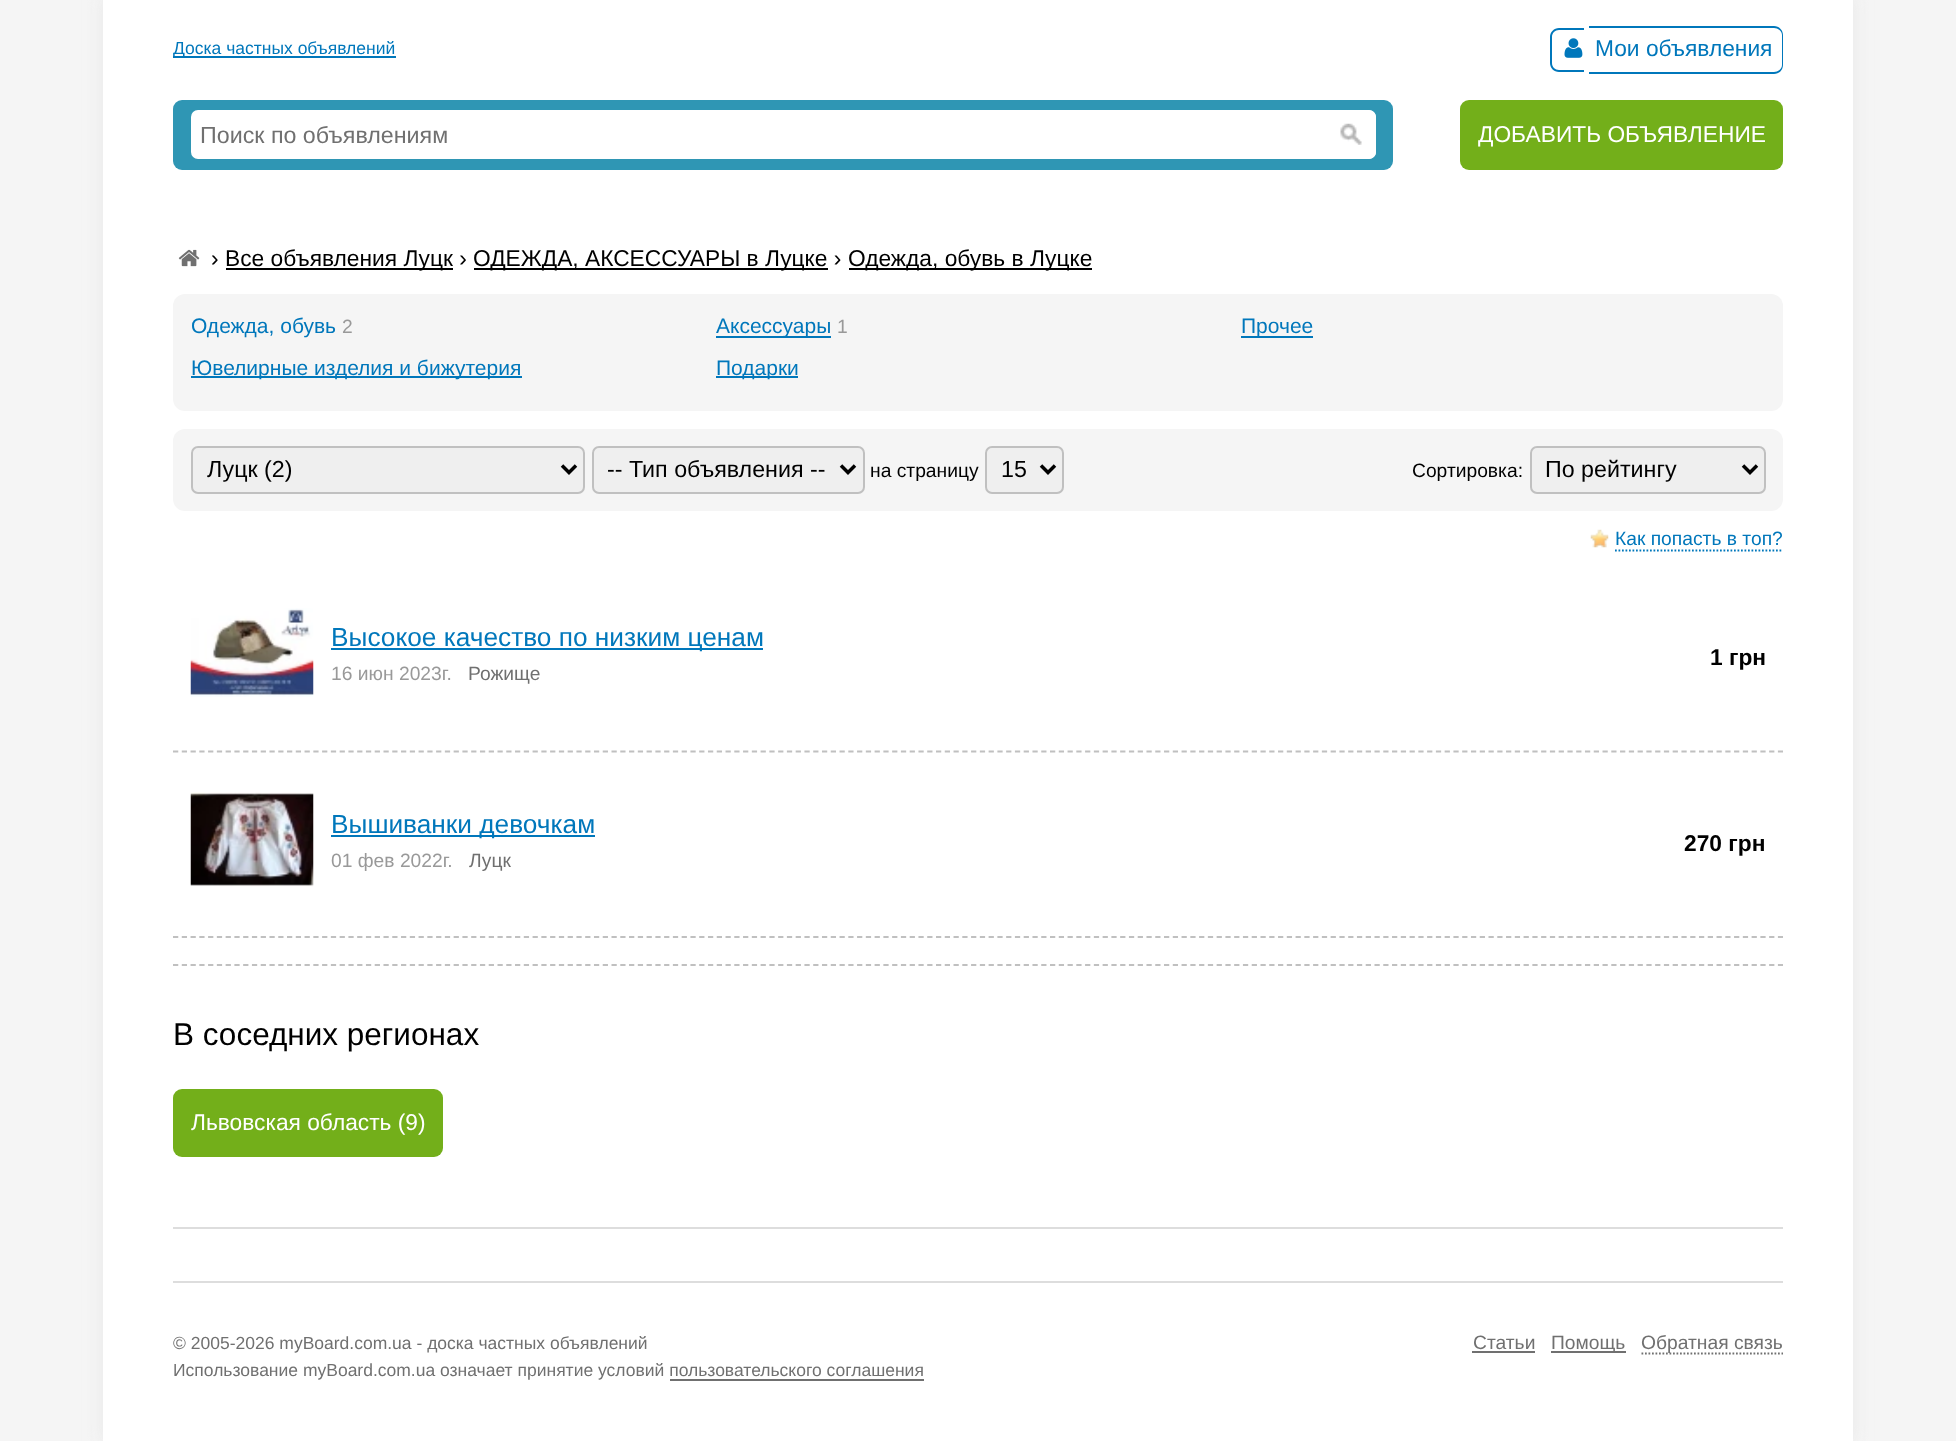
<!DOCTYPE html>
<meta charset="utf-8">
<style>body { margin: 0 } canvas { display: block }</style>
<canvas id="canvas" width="1956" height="1441"></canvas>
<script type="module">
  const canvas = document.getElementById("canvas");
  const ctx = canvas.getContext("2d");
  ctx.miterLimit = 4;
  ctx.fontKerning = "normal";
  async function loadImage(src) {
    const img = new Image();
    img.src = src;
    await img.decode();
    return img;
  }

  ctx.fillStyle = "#f5f5f5";
  ctx.fillRect(0, 0, 1956, 1441);
  ctx.fillStyle = "#e8e8e8";
  ctx.filter = "blur(9px)";
  ctx.beginPath();
  ctx.rect(103, -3, 1750, 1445);
  ctx.fill();
  ctx.filter = "none";
  ctx.fillStyle = "#ffffff";
  ctx.fillRect(103, 0, 1750, 1441);
  ctx.fillStyle = "#0077bb";
  ctx.fillRect(173, 56, 223, 2);
  ctx.font = "17.5px Liberation Sans";
  ctx.fillText("Доска частных объявлений", 173, 54);
  ctx.beginPath();
  ctx.moveTo(1559, 28);
  ctx.lineTo(1584, 28);
  ctx.lineTo(1584, 72);
  ctx.lineTo(1559, 72);
  ctx.bezierCurveTo(1554, 72, 1550, 68, 1550, 63);
  ctx.lineTo(1550, 37);
  ctx.bezierCurveTo(1550, 32, 1554, 28, 1559, 28);
  ctx.closePath();
  ctx.moveTo(1559, 30);
  ctx.lineTo(1584, 30);
  ctx.lineTo(1584, 70);
  ctx.lineTo(1559, 70);
  ctx.bezierCurveTo(1555, 70, 1552, 67, 1552, 63);
  ctx.lineTo(1552, 37);
  ctx.bezierCurveTo(1552, 33, 1555, 30, 1559, 30);
  ctx.closePath();
  ctx.fill("evenodd");
  ctx.beginPath();
  ctx.moveTo(1589, 26);
  ctx.lineTo(1774, 26);
  ctx.bezierCurveTo(1779, 26, 1783, 30, 1783, 35);
  ctx.lineTo(1783, 65);
  ctx.bezierCurveTo(1783, 70, 1779, 74, 1774, 74);
  ctx.lineTo(1589, 74);
  ctx.closePath();
  ctx.moveTo(1589, 28);
  ctx.lineTo(1774, 28);
  ctx.bezierCurveTo(1778, 28, 1782, 31, 1782, 35);
  ctx.lineTo(1782, 65);
  ctx.bezierCurveTo(1782, 69, 1778, 72, 1774, 72);
  ctx.lineTo(1589, 72);
  ctx.closePath();
  ctx.fill("evenodd");
  ctx.drawImage(await loadImage("img1.png"), 1564, 38, 19, 20);
  ctx.font = "22.75px Liberation Sans";
  ctx.fillText("Мои объявления", 1595, 56);
  ctx.fillStyle = "#2f96b4";
  ctx.beginPath();
  ctx.roundRect(173, 100, 1220, 70, 9);
  ctx.fill();
  ctx.fillStyle = "#ffffff";
  ctx.beginPath();
  ctx.roundRect(192, 111, 1135, 47, [6, 0, 0, 6]);
  ctx.fill();
  ctx.strokeStyle = "#ffffff";
  ctx.lineWidth = 2;
  ctx.stroke();
  ctx.font = "23.25px Liberation Sans";
  ctx.fillStyle = "#707070";
  ctx.fillText("Поиск по объявлениям", 200, 143);
  ctx.fillStyle = "#ffffff";
  ctx.beginPath();
  ctx.roundRect(1328, 110, 48, 49, [0, 7, 7, 0]);
  ctx.fill();
  ctx.drawImage(await loadImage("img2.png"), 1340, 123, 22, 22);
  ctx.beginPath();
  ctx.moveTo(1328, 110);
  ctx.lineTo(1368, 110);
  ctx.bezierCurveTo(1372, 110, 1376, 113, 1376, 117);
  ctx.lineTo(1376, 152);
  ctx.bezierCurveTo(1376, 156, 1372, 159, 1368, 159);
  ctx.lineTo(1328, 159);
  ctx.closePath();
  ctx.moveTo(1328, 112);
  ctx.lineTo(1368, 112);
  ctx.bezierCurveTo(1371, 112, 1374, 114, 1374, 117);
  ctx.lineTo(1374, 152);
  ctx.bezierCurveTo(1374, 155, 1371, 158, 1368, 158);
  ctx.lineTo(1328, 158);
  ctx.closePath();
  ctx.fill("evenodd");
  ctx.fillStyle = "#73af1a";
  ctx.beginPath();
  ctx.roundRect(1460, 100, 323, 70, 9);
  ctx.fill();
  ctx.font = "22.75px Liberation Sans";
  ctx.fillStyle = "#ffffff";
  ctx.fillText("ДОБАВИТЬ ОБЪЯВЛЕНИЕ", 1478, 142);
  ctx.drawImage(await loadImage("img3.png"), 178, 249, 22, 18);
  ctx.fillStyle = "#000000";
  ctx.fillText("›", 211, 266);
  ctx.fillRect(226, 268, 227, 2);
  ctx.fillText("Все объявления Луцк ›", 225, 266);
  ctx.fillRect(474, 268, 354, 2);
  ctx.fillText("ОДЕЖДА, АКСЕССУАРЫ в Луцке ›", 473, 266);
  ctx.fillRect(849, 268, 243, 2);
  ctx.fillText("Одежда, обувь в Луцке", 848, 266);
  ctx.fillStyle = "#f5f5f5";
  ctx.beginPath();
  ctx.roundRect(173, 294, 1610, 117, 12);
  ctx.fill();
  ctx.font = "21px Liberation Sans";
  ctx.fillStyle = "#0077bb";
  ctx.fillText("Одежда, обувь", 191, 333);
  ctx.font = "19.25px Liberation Sans";
  ctx.fillStyle = "#999999";
  ctx.fillText("2", 342, 333);
  ctx.fillStyle = "#0077bb";
  ctx.fillRect(716, 336, 115, 2);
  ctx.font = "21px Liberation Sans";
  ctx.fillText("Аксессуары", 716, 333);
  ctx.font = "19.25px Liberation Sans";
  ctx.fillStyle = "#999999";
  ctx.fillText("1", 837, 333);
  ctx.fillStyle = "#0077bb";
  ctx.fillRect(1241, 336, 72, 2);
  ctx.font = "21px Liberation Sans";
  ctx.fillText("Прочее", 1241, 333);
  ctx.fillRect(191, 376, 331, 2);
  ctx.fillText("Ювелирные изделия и бижутерия", 191, 375);
  ctx.fillRect(716, 376, 82, 2);
  ctx.fillText("Подарки", 716, 375);
  ctx.fillStyle = "#f5f5f5";
  ctx.beginPath();
  ctx.roundRect(173, 429, 1610, 82, 12);
  ctx.fill();
  ctx.fillStyle = "#efefef";
  ctx.beginPath();
  ctx.roundRect(192, 447, 392, 46, 6);
  ctx.fill();
  ctx.strokeStyle = "#c0c0c0";
  ctx.stroke();
  ctx.beginPath();
  ctx.moveTo(562, 465.5);
  ctx.lineTo(569, 472.5);
  ctx.lineTo(576, 465.5);
  ctx.strokeStyle = "#000000";
  ctx.lineWidth = 3.5;
  ctx.stroke();
  ctx.font = "23.25px Liberation Sans";
  ctx.fillStyle = "#000000";
  ctx.fillText("Луцк (2)", 207, 477);
  ctx.fillStyle = "#efefef";
  ctx.beginPath();
  ctx.roundRect(593, 447, 271, 46, 6);
  ctx.fill();
  ctx.strokeStyle = "#c0c0c0";
  ctx.lineWidth = 2;
  ctx.stroke();
  ctx.beginPath();
  ctx.moveTo(841, 465.5);
  ctx.lineTo(848, 472.5);
  ctx.lineTo(855, 465.5);
  ctx.strokeStyle = "#000000";
  ctx.lineWidth = 3.5;
  ctx.stroke();
  ctx.fillStyle = "#000000";
  ctx.fillText("-- Тип объявления --", 607, 477);
  ctx.font = "19.25px Liberation Sans";
  ctx.fillText("на страницу", 870, 477);
  ctx.fillStyle = "#efefef";
  ctx.beginPath();
  ctx.roundRect(986, 447, 77, 46, 6);
  ctx.fill();
  ctx.strokeStyle = "#c0c0c0";
  ctx.lineWidth = 2;
  ctx.stroke();
  ctx.beginPath();
  ctx.moveTo(1041, 465.5);
  ctx.lineTo(1048, 472.5);
  ctx.lineTo(1055, 465.5);
  ctx.strokeStyle = "#000000";
  ctx.lineWidth = 3.5;
  ctx.stroke();
  ctx.font = "23.25px Liberation Sans";
  ctx.fillStyle = "#000000";
  ctx.fillText("15", 1001, 477);
  ctx.font = "19.25px Liberation Sans";
  ctx.fillText("Сортировка:", 1412, 477);
  ctx.fillStyle = "#efefef";
  ctx.beginPath();
  ctx.roundRect(1531, 447, 234, 46, 6);
  ctx.fill();
  ctx.strokeStyle = "#c0c0c0";
  ctx.lineWidth = 2;
  ctx.stroke();
  ctx.beginPath();
  ctx.moveTo(1743, 465.5);
  ctx.lineTo(1750, 472.5);
  ctx.lineTo(1757, 465.5);
  ctx.strokeStyle = "#000000";
  ctx.lineWidth = 3.5;
  ctx.stroke();
  ctx.font = "23.25px Liberation Sans";
  ctx.fillStyle = "#000000";
  ctx.fillText("По рейтингу", 1545, 477);
  ctx.drawImage(await loadImage("img4.png"), 1590, 529, 19, 19);
  ctx.font = "19.25px Liberation Sans";
  ctx.fillStyle = "#0077bb";
  ctx.fillText("Как попасть в топ?", 1615, 545);
  ctx.beginPath();
  ctx.moveTo(1615, 550.5);
  ctx.lineTo(1783, 550.5);
  ctx.strokeStyle = "#0077bb";
  ctx.lineWidth = 1.8;
  ctx.setLineDash([1.75, 1.75]);
  ctx.stroke();
  ctx.drawImage(await loadImage("img5.png"), 190, 608, 124, 89);
  ctx.fillRect(331, 648, 432, 2);
  ctx.font = "26.25px Liberation Sans";
  ctx.fillText("Высокое качество по низким ценам", 331, 646);
  ctx.font = "19.25px Liberation Sans";
  ctx.fillStyle = "#999999";
  ctx.fillText("16 июн 2023г.", 331, 680);
  ctx.fillStyle = "#707070";
  ctx.fillText("Рожище", 468, 680);
  ctx.font = "bold 22.75px Liberation Sans";
  ctx.fillStyle = "#000000";
  ctx.fillText("1 грн", 1710, 665);
  ctx.beginPath();
  ctx.moveTo(173, 751.5);
  ctx.lineTo(1783, 751.5);
  ctx.strokeStyle = "#c0c0c0";
  ctx.setLineDash([5.25, 3.52]);
  ctx.stroke();
  ctx.drawImage(await loadImage("img6.png"), 190, 792, 124, 95);
  ctx.fillStyle = "#0077bb";
  ctx.fillRect(331, 835, 264, 2);
  ctx.font = "26.25px Liberation Sans";
  ctx.fillText("Вышиванки девочкам", 331, 833);
  ctx.font = "19.25px Liberation Sans";
  ctx.fillStyle = "#999999";
  ctx.fillText("01 фев 2022г.", 331, 867);
  ctx.fillStyle = "#707070";
  ctx.fillText("Луцк", 469, 867);
  ctx.font = "bold 22.75px Liberation Sans";
  ctx.fillStyle = "#000000";
  ctx.fillText("270 грн", 1684, 851);
  ctx.beginPath();
  ctx.moveTo(173, 937);
  ctx.lineTo(1783, 937);
  ctx.stroke();
  ctx.beginPath();
  ctx.moveTo(173, 965);
  ctx.lineTo(1783, 965);
  ctx.stroke();
  ctx.font = "31.5px Liberation Sans";
  ctx.fillText("В соседних регионах", 173, 1045);
  ctx.fillStyle = "#73af1a";
  ctx.beginPath();
  ctx.roundRect(173, 1089, 270, 68, 9);
  ctx.fill();
  ctx.font = "22.75px Liberation Sans";
  ctx.fillStyle = "#ffffff";
  ctx.fillText("Львовская область (9)", 191, 1130);
  ctx.fillStyle = "#dddddd";
  ctx.fillRect(173, 1227, 1610, 2);
  ctx.fillRect(173, 1281, 1610, 2);
  ctx.font = "17.5px Liberation Sans";
  ctx.fillStyle = "#707070";
  ctx.fillText("© 2005-2026 myBoard.com.ua - доска частных объявлений", 173, 1349);
  ctx.fillText("Использование myBoard.com.ua означает принятие условий пользовательского соглашения", 173, 1376);
  ctx.fillRect(670, 1379, 254, 2);
  ctx.font = "19.25px Liberation Sans";
  ctx.fillText("Статьи", 1473, 1349);
  ctx.fillRect(1472, 1351, 63, 2);
  ctx.fillRect(1551, 1351, 75, 2);
  ctx.fillText("Помощь", 1551, 1349);
  ctx.beginPath();
  ctx.moveTo(1641.5, 1353.5);
  ctx.lineTo(1783, 1353.5);
  ctx.strokeStyle = "#707070";
  ctx.setLineDash([1.75, 1.75]);
  ctx.stroke();
  ctx.fillText("Обратная связь", 1641, 1349);
</script>
